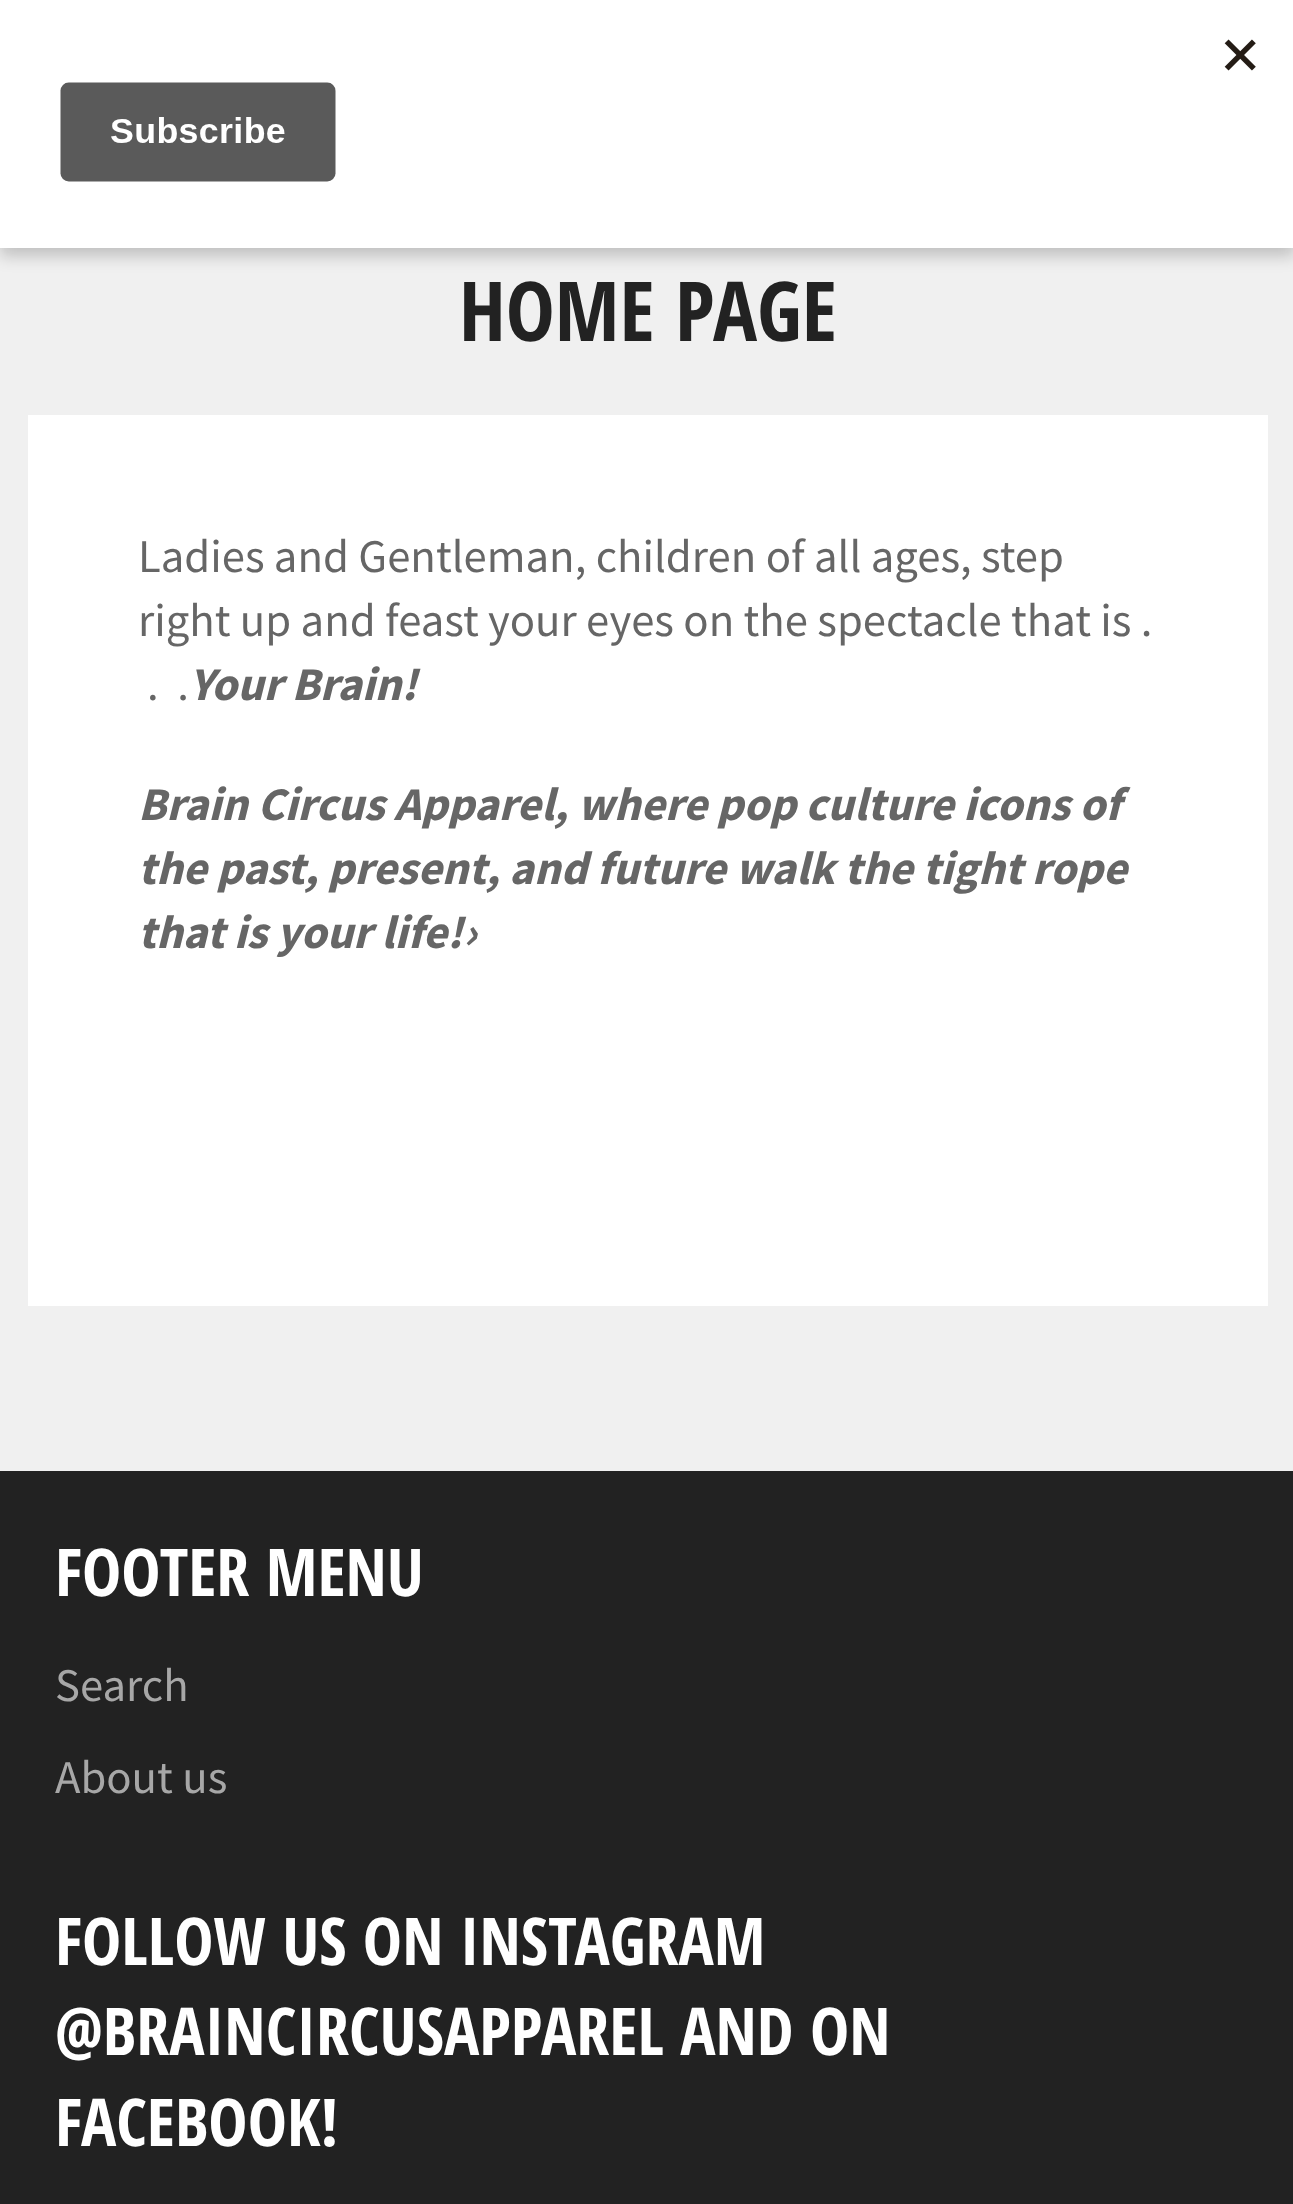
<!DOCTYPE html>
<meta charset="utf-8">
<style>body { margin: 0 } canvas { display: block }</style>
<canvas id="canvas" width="1293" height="2204"></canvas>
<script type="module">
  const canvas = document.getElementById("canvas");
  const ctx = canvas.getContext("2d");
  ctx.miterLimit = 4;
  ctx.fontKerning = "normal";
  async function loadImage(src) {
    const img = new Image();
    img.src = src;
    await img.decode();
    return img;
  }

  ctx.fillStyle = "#f0f0f0";
  ctx.fillRect(0, 0, 1293, 2204);
  ctx.fillStyle = "rgba(0, 0, 0, 0.2)";
  ctx.filter = "blur(8px)";
  ctx.beginPath();
  ctx.rect(0, 8, 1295, 248);
  ctx.fill();
  ctx.filter = "none";
  ctx.fillStyle = "#ffffff";
  ctx.fillRect(0, 0, 1293, 248);
  ctx.drawImage(await loadImage("img1.png"), 60, 39, 1196, 143);
  ctx.font = "bold 82.5px Open Sans Condensed";
  ctx.fillStyle = "#222222";
  ctx.fillText("HOME PAGE", 459, 341);
  ctx.fillStyle = "#ffffff";
  ctx.fillRect(28, 415, 1240, 891);
  ctx.font = "46.75px Source Sans Pro";
  ctx.fillStyle = "#666666";
  ctx.fillText("Ladies and Gentleman, children of all ages, step", 138, 572);
  ctx.fillText("right up and feast your eyes on the spectacle that is .", 138, 636);
  ctx.fillText(".  .", 147, 700);
  ctx.font = "italic bold 46.75px Source Sans Pro";
  ctx.fillText("Your Brain!", 189, 700);
  ctx.fillText("Brain Circus Apparel, where pop culture icons of", 138, 820);
  ctx.fillText("the past, present, and future walk the tight rope", 138, 884);
  ctx.fillText("that is your life!›", 138, 948);
  ctx.fillStyle = "#222222";
  ctx.fillRect(0, 1471, 1293, 733);
  ctx.font = "bold 66px Open Sans Condensed";
  ctx.fillStyle = "#ffffff";
  ctx.fillText("FOOTER MENU", 55, 1596);
  ctx.font = "46.75px Source Sans Pro";
  ctx.fillStyle = "#a7a7a7";
  ctx.fillText("Search", 55, 1701);
  ctx.fillText("About us", 55, 1793);
  ctx.font = "bold 66px Open Sans Condensed";
  ctx.fillStyle = "#ffffff";
  ctx.fillText("FOLLOW US ON INSTAGRAM", 55, 1965);
  ctx.fillText("@BRAINCIRCUSAPPAREL AND ON", 55, 2055);
  ctx.fillText("FACEBOOK!", 55, 2146);
</script>
